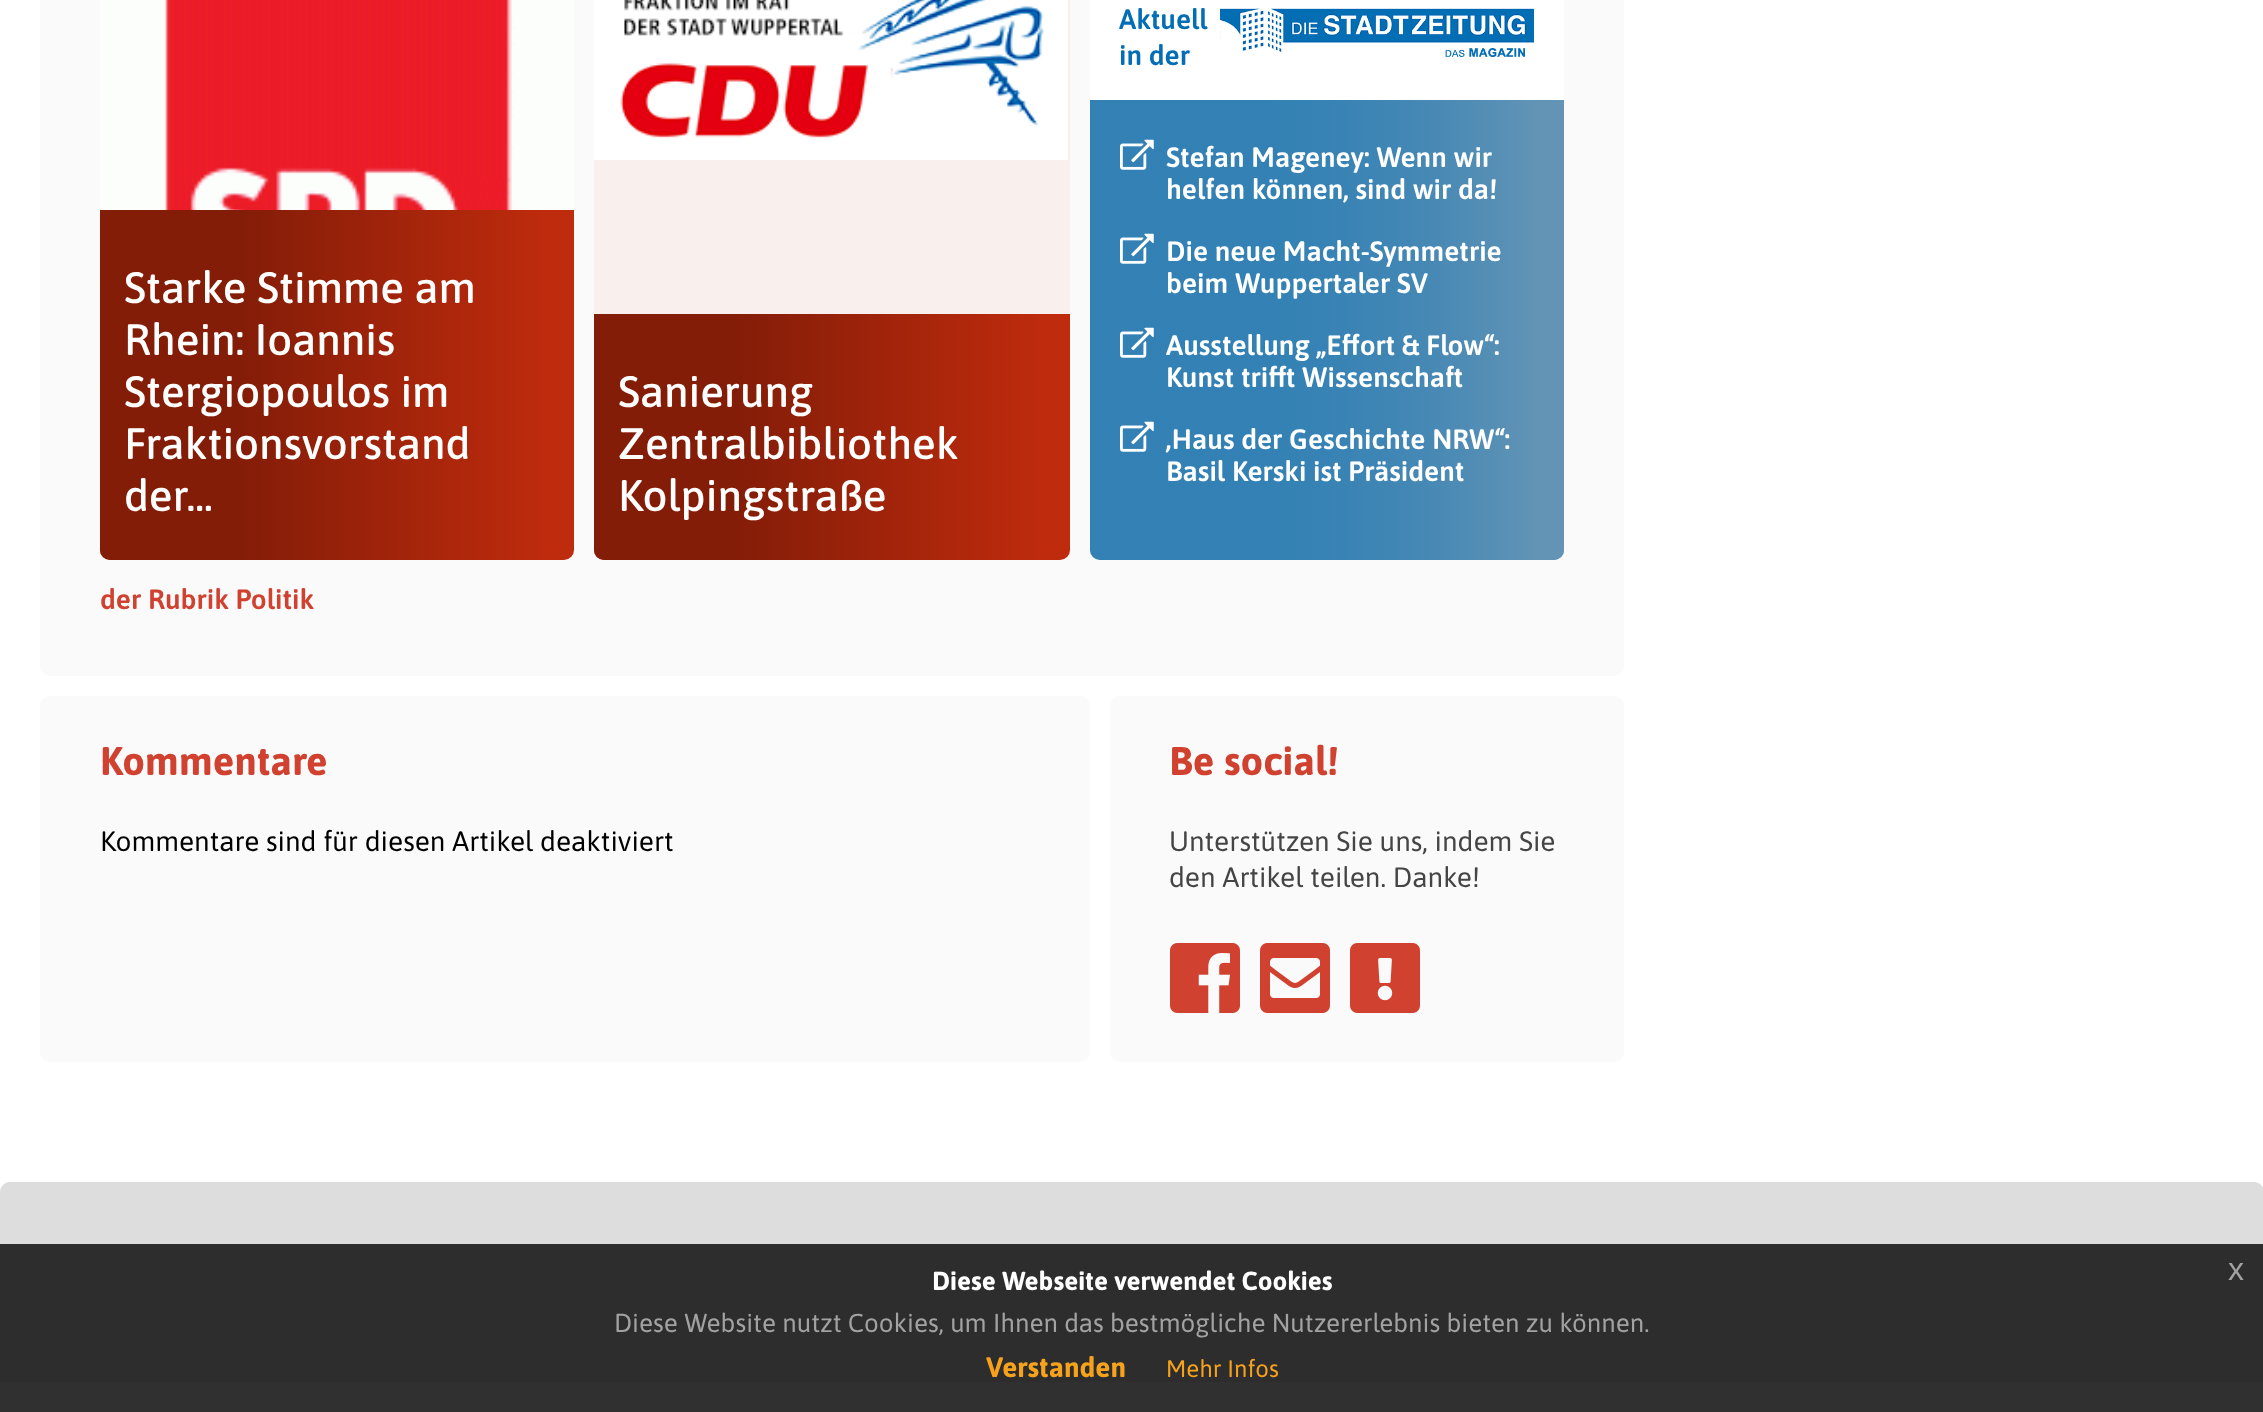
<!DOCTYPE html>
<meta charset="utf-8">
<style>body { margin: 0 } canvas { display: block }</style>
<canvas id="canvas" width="2263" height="1412"></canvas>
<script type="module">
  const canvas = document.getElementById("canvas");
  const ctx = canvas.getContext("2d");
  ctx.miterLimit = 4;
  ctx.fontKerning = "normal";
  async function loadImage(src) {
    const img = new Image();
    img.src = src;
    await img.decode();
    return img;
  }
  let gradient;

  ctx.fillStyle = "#ffffff";
  ctx.fillRect(0, 0, 2263, 1412);
  ctx.fillStyle = "#303030";
  ctx.fillRect(0, 1382, 2263, 30);
  ctx.fillStyle = "#fafafa";
  ctx.beginPath();
  ctx.roundRect(40, -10, 1584, 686, 10);
  ctx.fill();
  ctx.drawImage(await loadImage("img1.png"), 100, 0, 474, 210);
  ctx.fillStyle = "#bf2b0d";
  ctx.beginPath();
  ctx.roundRect(100, 210, 474, 350, [0, 0, 10, 10]);
  ctx.fill();
  gradient = ctx.createLinearGradient(100, 385, 574, 385);
  gradient.addColorStop(0.3, "#841d08");
  gradient.addColorStop(0.95, "rgba(132, 29, 8, 0)");
  ctx.fillStyle = gradient;
  ctx.beginPath();
  ctx.roundRect(100, 210, 474, 350, [0, 0, 10, 10]);
  ctx.fill();
  ctx.font = "500 44px Asap";
  ctx.fillStyle = "#ffffff";
  ctx.fillText("Starke Stimme am", 124, 303);
  ctx.fillText("Rhein: Ioannis", 124, 355);
  ctx.fillText("Stergiopoulos im", 124, 407);
  ctx.fillText("Fraktionsvorstand", 124, 459);
  ctx.fillText("der...", 124, 511);
  ctx.fillStyle = "#f9f0ee";
  ctx.beginPath();
  ctx.roundRect(594, -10, 476, 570, 10);
  ctx.fill();
  ctx.drawImage(await loadImage("img2.png"), 594, 0, 474, 160);
  ctx.fillStyle = "#bf2b0d";
  ctx.beginPath();
  ctx.roundRect(594, 314, 476, 246, [0, 0, 10, 10]);
  ctx.fill();
  gradient = ctx.createLinearGradient(594, 437, 1070, 437);
  gradient.addColorStop(0.3, "#841d08");
  gradient.addColorStop(0.95, "rgba(132, 29, 8, 0)");
  ctx.fillStyle = gradient;
  ctx.beginPath();
  ctx.roundRect(594, 314, 476, 246, [0, 0, 10, 10]);
  ctx.fill();
  ctx.fillStyle = "#ffffff";
  ctx.fillText("Sanierung", 618, 407);
  ctx.fillText("Zentralbibliothek", 618, 459);
  ctx.fillText("Kolpingstraße", 618, 511);
  ctx.fillStyle = "#6394b5";
  ctx.beginPath();
  ctx.roundRect(1090, -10, 474, 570, 10);
  ctx.fill();
  gradient = ctx.createLinearGradient(1090, 260, 1563, 260);
  gradient.addColorStop(0.3, "rgba(3, 110, 180, 0.5)");
  gradient.addColorStop(0.95, "#6394b5");
  ctx.fillStyle = gradient;
  ctx.beginPath();
  ctx.roundRect(1090, -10, 474, 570, 10);
  ctx.fill();
  ctx.fillStyle = "#ffffff";
  ctx.fillRect(1090, 0, 474, 100);
  ctx.font = "600 28px Asap";
  ctx.fillStyle = "#036eb4";
  ctx.fillText("Aktuell", 1119, 29);
  ctx.fillText("in der", 1119, 65);
  ctx.drawImage(await loadImage("img3.png"), 1220, 8, 314, 49);
  ctx.drawImage(await loadImage("img4.png"), 1120, 139, 34, 31);
  ctx.fillStyle = "#ffffff";
  ctx.fillText("Stefan Mageney: Wenn wir", 1166, 167);
  ctx.fillText("helfen können, sind wir da!", 1166, 199);
  ctx.drawImage(await loadImage("img4.png"), 1120, 233, 34, 31);
  ctx.fillText("Die neue Macht-Symmetrie", 1166, 261);
  ctx.fillText("beim Wuppertaler SV", 1166, 293);
  ctx.drawImage(await loadImage("img4.png"), 1120, 327, 34, 31);
  ctx.fillText("Ausstellung „Effort & Flow“:", 1166, 355);
  ctx.fillText("Kunst trifft Wissenschaft", 1166, 387);
  ctx.drawImage(await loadImage("img4.png"), 1120, 421, 34, 31);
  ctx.fillText("‚Haus der Geschichte NRW“:", 1166, 449);
  ctx.fillText("Basil Kerski ist Präsident", 1166, 481);
  ctx.fillStyle = "#d04130";
  ctx.fillText("der Rubrik Politik", 100, 609);
  ctx.fillStyle = "#fafafa";
  ctx.beginPath();
  ctx.roundRect(40, 696, 1050, 366, 10);
  ctx.fill();
  ctx.font = "bold 40px Asap";
  ctx.fillStyle = "#d04130";
  ctx.fillText("Kommentare", 100, 775);
  ctx.font = "28px Asap";
  ctx.fillStyle = "#000000";
  ctx.fillText("Kommentare sind für diesen Artikel deaktiviert", 100, 851);
  ctx.fillStyle = "#fafafa";
  ctx.beginPath();
  ctx.roundRect(1110, 696, 514, 366, 10);
  ctx.fill();
  ctx.font = "bold 40px Asap";
  ctx.fillStyle = "#d04130";
  ctx.fillText("Be social!", 1169, 775);
  ctx.font = "28px Asap";
  ctx.fillStyle = "#454545";
  ctx.fillText("Unterstützen Sie uns, indem Sie", 1169, 851);
  ctx.fillText("den Artikel teilen. Danke!", 1169, 887);
  ctx.drawImage(await loadImage("img5.png"), 1170, 943, 70, 70);
  ctx.drawImage(await loadImage("img6.png"), 1260, 943, 70, 70);
  ctx.drawImage(await loadImage("img7.png"), 1350, 943, 70, 70);
  ctx.fillStyle = "#dddddd";
  ctx.beginPath();
  ctx.moveTo(10, 1182);
  ctx.lineTo(2254, 1182);
  ctx.bezierCurveTo(2259.5, 1182, 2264, 1186.5, 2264, 1192);
  ctx.lineTo(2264, 1382);
  ctx.lineTo(0, 1382);
  ctx.lineTo(0, 1192);
  ctx.bezierCurveTo(0, 1186.5, 4.5, 1182, 10, 1182);
  ctx.closePath();
  ctx.fill();
  ctx.fillStyle = "#2d2d2d";
  ctx.fillRect(0, 1244, 2263, 138);
  ctx.font = "bold 26px Asap";
  ctx.fillStyle = "#ffffff";
  ctx.fillText("Diese Webseite verwendet Cookies", 932, 1290);
  ctx.font = "32px Liberation Sans";
  ctx.fillStyle = "#a2a2a2";
  ctx.fillText("x", 2228, 1280);
  ctx.font = "26px Asap";
  ctx.fillText("Diese Website nutzt Cookies, um Ihnen das bestmögliche Nutzererlebnis bieten zu können.", 614, 1332);
  ctx.font = "bold 28px Asap";
  ctx.fillStyle = "#f6a21d";
  ctx.fillText("Verstanden", 986, 1377);
  ctx.font = "24px Asap";
  ctx.fillText("Mehr Infos", 1166, 1377);
</script>
